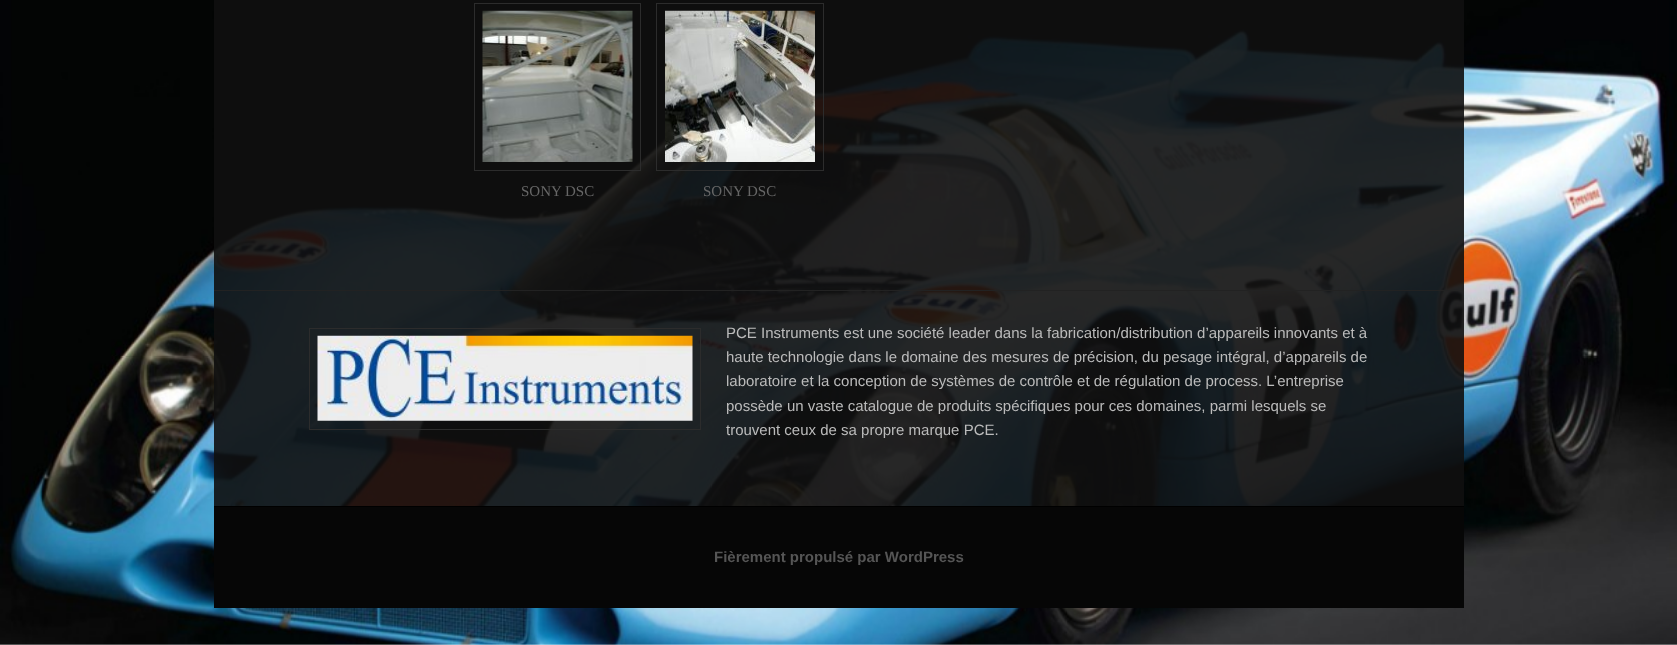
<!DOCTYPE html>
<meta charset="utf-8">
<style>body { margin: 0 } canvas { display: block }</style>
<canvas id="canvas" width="1677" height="645"></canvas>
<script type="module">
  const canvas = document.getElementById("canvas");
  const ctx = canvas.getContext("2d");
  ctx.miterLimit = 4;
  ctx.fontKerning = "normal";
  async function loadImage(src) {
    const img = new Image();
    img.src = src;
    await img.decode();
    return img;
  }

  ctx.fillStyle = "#ffffff";
  ctx.fillRect(0, 0, 1677, 645);
  ctx.drawImage(await loadImage("img1.png"), 0, 0, 1677, 645);
  ctx.fillStyle = "rgba(15, 15, 15, 0.9)";
  ctx.fillRect(214, 0, 1250, 506);
  ctx.strokeStyle = "#2c2c2c";
  ctx.strokeRect(474.5, 3.5, 166, 167);
  ctx.drawImage(await loadImage("img2.png"), 482, 10, 151, 152);
  ctx.font = "15px Liberation Serif";
  ctx.fillStyle = "#666666";
  ctx.fillText("SONY DSC", 521, 196);
  ctx.strokeRect(656.5, 3.5, 167, 167);
  ctx.drawImage(await loadImage("img3.png"), 665, 10, 150, 152);
  ctx.fillText("SONY DSC", 703, 196);
  ctx.fillStyle = "#222222";
  ctx.fillRect(214, 290, 1250, 1);
  ctx.strokeRect(309.5, 328.5, 391, 101);
  ctx.drawImage(await loadImage("img4.png"), 317, 335, 376, 86);
  ctx.font = "15px Liberation Sans";
  ctx.fillStyle = "#bbbbbb";
  ctx.fillText("PCE Instruments est une société leader dans la fabrication/distribution d’appareils innovants et à", 726, 338);
  ctx.fillText("haute technologie dans le domaine des mesures de précision, du pesage intégral, d’appareils de", 726, 362);
  ctx.fillText("laboratoire et la conception de systèmes de contrôle et de régulation de process. L’entreprise", 726, 386);
  ctx.fillText("possède un vaste catalogue de produits spécifiques pour ces domaines, parmi lesquels se", 726, 411);
  ctx.fillText("trouvent ceux de sa propre marque PCE.", 726, 435);
  ctx.fillStyle = "#060606";
  ctx.fillRect(214, 507, 1250, 101);
  ctx.fillStyle = "#000000";
  ctx.fillRect(214, 506, 1250, 1);
  ctx.font = "bold 15px Liberation Sans";
  ctx.fillStyle = "#555555";
  ctx.fillText("Fièrement propulsé par WordPress", 714, 562);
</script>
